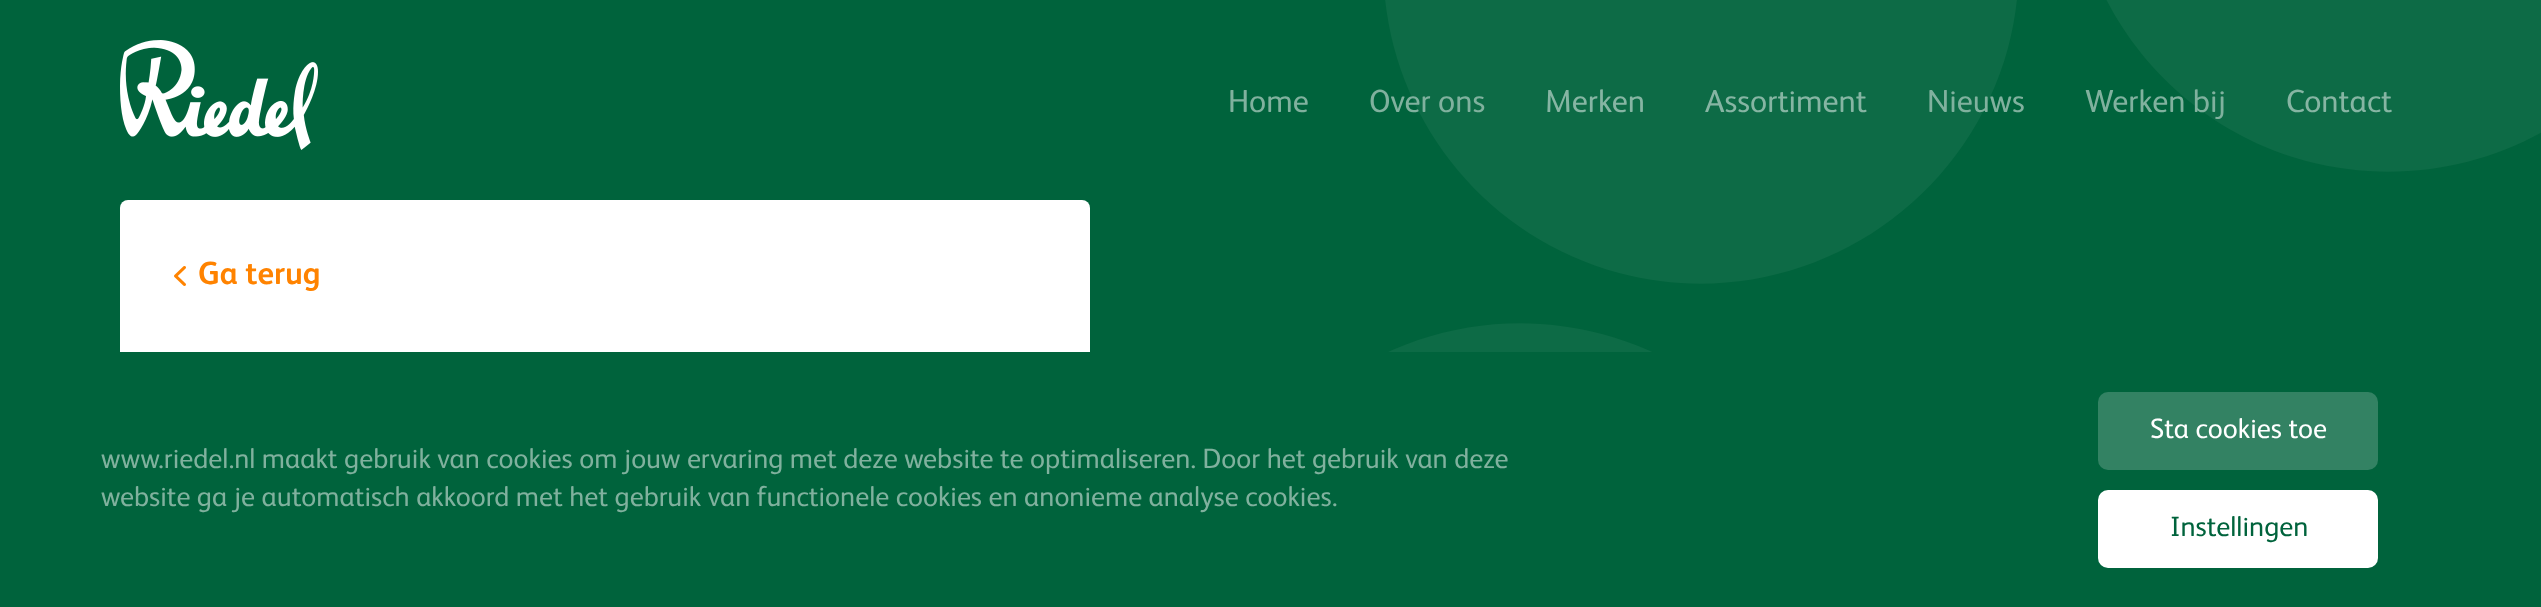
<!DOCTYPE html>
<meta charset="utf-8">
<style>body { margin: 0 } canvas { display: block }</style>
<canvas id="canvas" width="2541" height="607"></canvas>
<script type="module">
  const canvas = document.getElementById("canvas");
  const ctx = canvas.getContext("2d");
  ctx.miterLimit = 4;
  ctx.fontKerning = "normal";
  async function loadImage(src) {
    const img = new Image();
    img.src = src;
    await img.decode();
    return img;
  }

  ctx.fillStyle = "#00633c";
  ctx.fillRect(0, 0, 2541, 607);
  ctx.fillStyle = "#0d6b46";
  ctx.beginPath();
  ctx.moveTo(1783, -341);
  ctx.bezierCurveTo(1953, -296, 2053, -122, 2008, 48);
  ctx.bezierCurveTo(1962, 217, 1788, 318, 1619, 273);
  ctx.bezierCurveTo(1449, 227, 1349, 53, 1394, -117);
  ctx.bezierCurveTo(1439, -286, 1614, -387, 1783, -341);
  ctx.closePath();
  ctx.fill();
  ctx.beginPath();
  ctx.moveTo(2471, -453);
  ctx.bezierCurveTo(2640, -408, 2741, -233, 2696, -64);
  ctx.bezierCurveTo(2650, 106, 2476, 206, 2306, 161);
  ctx.bezierCurveTo(2137, 115, 2036, -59, 2082, -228);
  ctx.bezierCurveTo(2127, -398, 2301, -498, 2471, -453);
  ctx.closePath();
  ctx.fill();
  ctx.beginPath();
  ctx.moveTo(1602, 334);
  ctx.bezierCurveTo(1772, 379, 1872, 554, 1827, 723);
  ctx.bezierCurveTo(1781, 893, 1607, 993, 1438, 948);
  ctx.bezierCurveTo(1268, 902, 1168, 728, 1213, 559);
  ctx.bezierCurveTo(1258, 389, 1433, 289, 1602, 334);
  ctx.closePath();
  ctx.fill();
  ctx.drawImage(await loadImage("img1.png"), 120, 40, 198, 110);
  ctx.font = "32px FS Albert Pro";
  ctx.fillStyle = "#80b19e";
  ctx.fillText("Home", 1228, 112);
  ctx.fillText("Over ons", 1369, 112);
  ctx.fillStyle = "#86b5a3";
  ctx.fillText("Merken", 1545, 112);
  ctx.fillText("Assortiment", 1705, 112);
  ctx.fillStyle = "#80b19e";
  ctx.fillText("Nieuws", 1927, 112);
  ctx.fillText("Werken bij", 2085, 112);
  ctx.fillStyle = "#86b5a3";
  ctx.fillText("Contact", 2286, 112);
  ctx.fillStyle = "#ffffff";
  ctx.beginPath();
  ctx.roundRect(120, 200, 970, 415, 8);
  ctx.fill();
  ctx.drawImage(await loadImage("img2.png"), 174, 266, 12, 20);
  ctx.font = "bold 32px FS Albert Pro";
  ctx.fillStyle = "#ff8300";
  ctx.fillText("Ga terug", 198, 284);
  ctx.fillStyle = "#00633c";
  ctx.fillRect(120, 352, 1716, 255);
  ctx.font = "28px FS Albert Pro";
  ctx.fillStyle = "#80b19e";
  ctx.fillText("www.riedel.nl maakt gebruik van cookies om jouw ervaring met deze website te optimaliseren. Door het gebruik van deze", 101, 468);
  ctx.fillText("website ga je automatisch akkoord met het gebruik van functionele cookies en anonieme analyse cookies.", 101, 506);
  ctx.fillStyle = "#338263";
  ctx.beginPath();
  ctx.roundRect(2098, 392, 280, 78, 10);
  ctx.fill();
  ctx.fillStyle = "#ffffff";
  ctx.fillText("Sta cookies toe", 2150, 438);
  ctx.beginPath();
  ctx.roundRect(2098, 490, 280, 78, 10);
  ctx.fill();
  ctx.fillStyle = "#00633c";
  ctx.fillText("Instellingen", 2170, 536);
</script>
